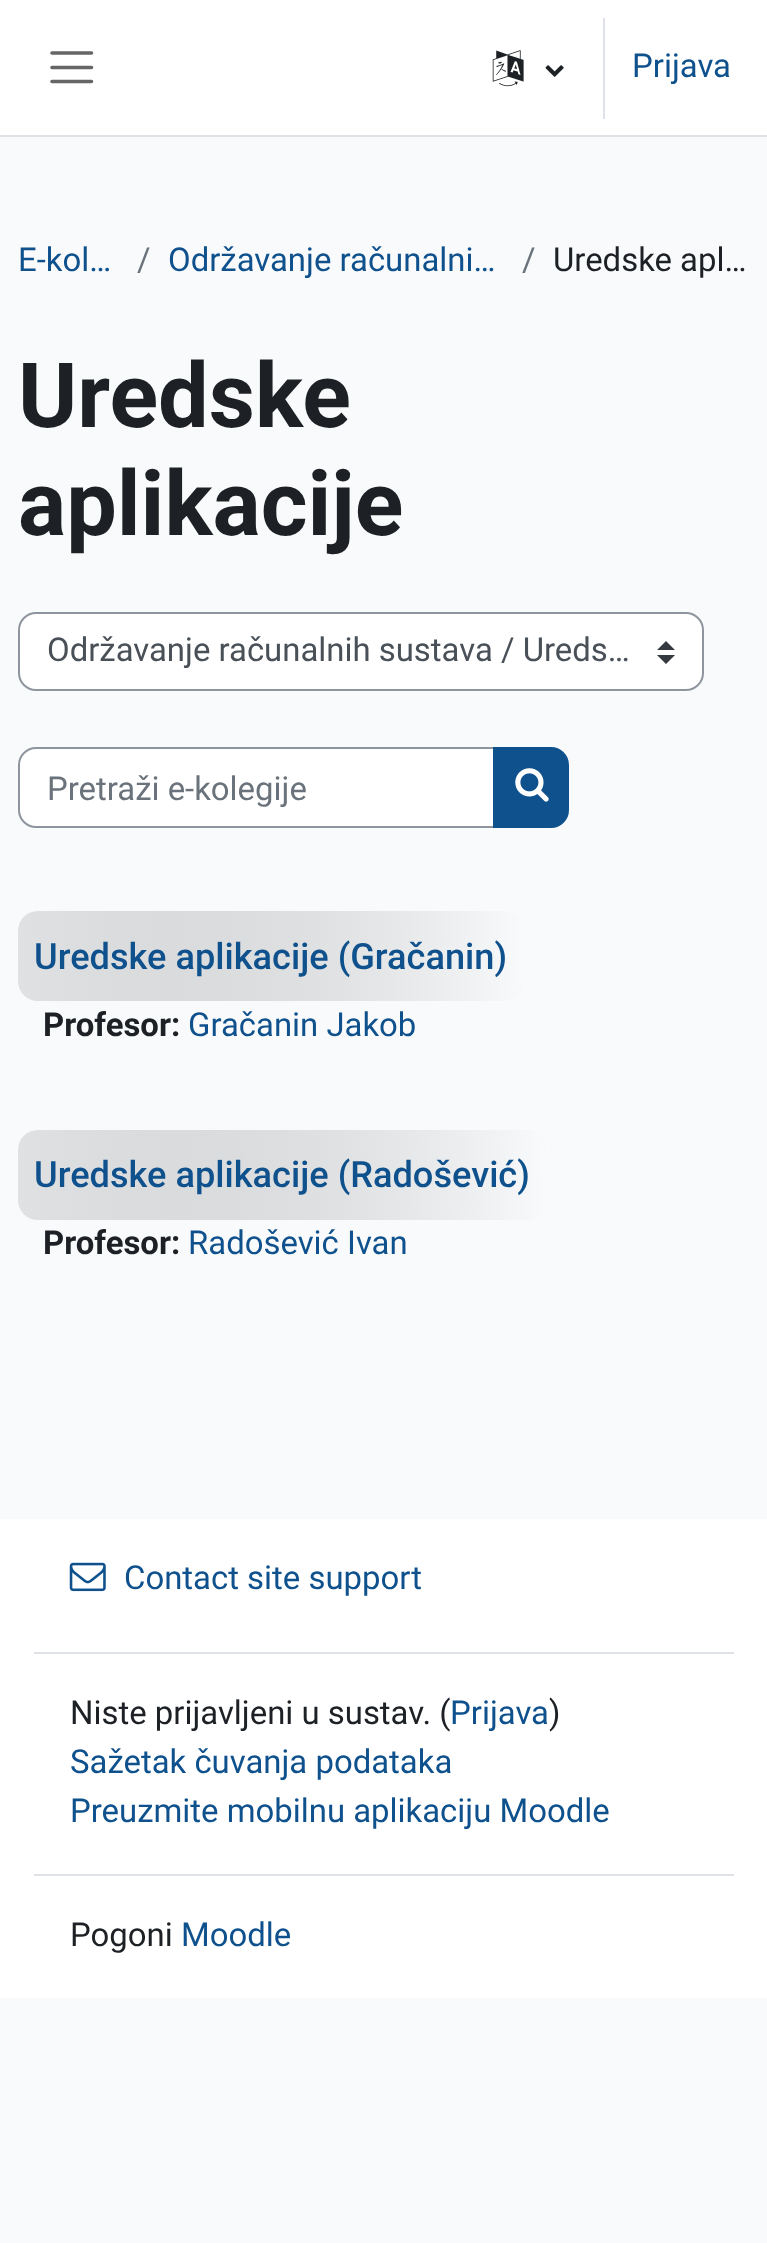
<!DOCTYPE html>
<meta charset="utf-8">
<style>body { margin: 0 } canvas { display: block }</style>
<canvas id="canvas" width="767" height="2243"></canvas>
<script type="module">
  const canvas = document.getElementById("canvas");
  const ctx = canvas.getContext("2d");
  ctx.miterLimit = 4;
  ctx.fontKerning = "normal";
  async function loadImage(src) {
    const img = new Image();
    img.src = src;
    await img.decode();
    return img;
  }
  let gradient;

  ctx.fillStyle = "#f9fafb";
  ctx.fillRect(0, 0, 767, 2243);
  ctx.fillStyle = "#ffffff";
  ctx.fillRect(0, 0, 767, 135);
  ctx.fillStyle = "#dee2e6";
  ctx.fillRect(0, 135, 767, 2);
  ctx.beginPath();
  ctx.moveTo(52, 53);
  ctx.lineTo(91.5, 53);
  ctx.moveTo(52, 67.5);
  ctx.lineTo(91.5, 67.5);
  ctx.moveTo(52, 81.5);
  ctx.lineTo(91.5, 81.5);
  ctx.strokeStyle = "#666666";
  ctx.lineWidth = 3.6;
  ctx.lineCap = "round";
  ctx.stroke();
  ctx.drawImage(await loadImage("img1.png"), 492, 50, 32, 37);
  ctx.drawImage(await loadImage("img2.png"), 545, 65, 19, 12);
  ctx.fillRect(603, 18, 2, 101);
  ctx.font = "32.9px Roboto";
  ctx.fillStyle = "#0f518d";
  ctx.fillText("Prijava", 632, 77);
  ctx.fillText("E-kol…", 18, 271);
  ctx.fillStyle = "#6a737b";
  ctx.fillText("/", 137, 271);
  ctx.fillStyle = "#0f518d";
  ctx.fillText("Održavanje računalni…", 168, 271);
  ctx.fillStyle = "#6a737b";
  ctx.fillText("/", 522, 271);
  ctx.fillStyle = "#1d2125";
  ctx.fillText("Uredske apl…", 553, 271);
  ctx.font = "bold 90px Roboto";
  ctx.fillText("Uredske", 18, 427);
  ctx.fillText("aplikacije", 18, 535);
  ctx.fillStyle = "#ffffff";
  ctx.beginPath();
  ctx.roundRect(18, 612, 686, 79, 18);
  ctx.fill();
  ctx.fillStyle = "#343a40";
  ctx.beginPath();
  ctx.moveTo(666, 641);
  ctx.lineTo(657, 650);
  ctx.lineTo(675, 650);
  ctx.closePath();
  ctx.moveTo(666, 664);
  ctx.lineTo(657, 655);
  ctx.lineTo(675, 655);
  ctx.closePath();
  ctx.fill();
  ctx.beginPath();
  ctx.roundRect(19, 613, 684, 77, 17);
  ctx.strokeStyle = "#8f959e";
  ctx.lineWidth = 2;
  ctx.stroke();
  ctx.font = "32.9px Roboto";
  ctx.fillStyle = "#495057";
  ctx.fillText("Održavanje računalnih sustava / Ureds…", 47, 661);
  ctx.fillStyle = "#ffffff";
  ctx.beginPath();
  ctx.roundRect(19, 748, 475, 79, [17, 0, 0, 17]);
  ctx.fill();
  ctx.stroke();
  ctx.fillStyle = "#6a737b";
  ctx.fillText("Pretraži e-kolegije", 47, 800);
  ctx.fillStyle = "#0f518d";
  ctx.beginPath();
  ctx.roundRect(494, 748, 74, 79, [0, 17, 17, 0]);
  ctx.fill();
  ctx.strokeStyle = "#0f518d";
  ctx.stroke();
  ctx.drawImage(await loadImage("img3.png"), 515, 768, 34, 34);
  ctx.fillStyle = "#eef0f2";
  ctx.beginPath();
  ctx.roundRect(18, 911, 504, 90, 20);
  ctx.fill();
  gradient = ctx.createLinearGradient(17, 961, 523, 952);
  gradient.addColorStop(0, "rgba(170, 170, 170, 0.21)");
  gradient.addColorStop(1, "#f9fafb");
  ctx.fillStyle = gradient;
  ctx.beginPath();
  ctx.roundRect(18, 911, 504, 90, 20);
  ctx.fill();
  ctx.font = "500 36.2px Roboto";
  ctx.fillStyle = "#0f518d";
  ctx.fillText("Uredske aplikacije (Gračanin)", 34, 969);
  ctx.font = "bold 32.9px Roboto";
  ctx.fillStyle = "#1d2125";
  ctx.fillText("Profesor:", 43, 1036);
  ctx.font = "32.9px Roboto";
  ctx.fillStyle = "#0f518d";
  ctx.fillText("Gračanin Jakob", 188, 1036);
  ctx.fillStyle = "#eef0f2";
  ctx.beginPath();
  ctx.roundRect(18, 1130, 527, 90, 20);
  ctx.fill();
  gradient = ctx.createLinearGradient(17, 1179, 545, 1170);
  gradient.addColorStop(0, "rgba(170, 170, 170, 0.21)");
  gradient.addColorStop(1, "#f9fafb");
  ctx.fillStyle = gradient;
  ctx.beginPath();
  ctx.roundRect(18, 1130, 527, 90, 20);
  ctx.fill();
  ctx.font = "500 36.2px Roboto";
  ctx.fillStyle = "#0f518d";
  ctx.fillText("Uredske aplikacije (Radošević)", 34, 1187);
  ctx.font = "bold 32.9px Roboto";
  ctx.fillStyle = "#1d2125";
  ctx.fillText("Profesor:", 43, 1254);
  ctx.font = "32.9px Roboto";
  ctx.fillStyle = "#0f518d";
  ctx.fillText("Radošević Ivan", 188, 1254);
  ctx.fillStyle = "#ffffff";
  ctx.fillRect(0, 1519, 767, 479);
  ctx.fillStyle = "#dee2e6";
  ctx.fillRect(34, 1652, 700, 2);
  ctx.drawImage(await loadImage("img4.png"), 69, 1562, 37, 30);
  ctx.fillStyle = "#0f518d";
  ctx.fillText("Contact site support", 124, 1589);
  ctx.fillStyle = "#dee2e6";
  ctx.fillRect(34, 1874, 700, 2);
  ctx.fillStyle = "#1d2125";
  ctx.fillText("Niste prijavljeni u sustav. (", 70, 1724);
  ctx.fillStyle = "#0f518d";
  ctx.fillText("Prijava", 450, 1724);
  ctx.fillStyle = "#1d2125";
  ctx.fillText(")", 549, 1724);
  ctx.fillStyle = "#0f518d";
  ctx.fillText("Sažetak čuvanja podataka", 70, 1773);
  ctx.fillText("Preuzmite mobilnu aplikaciju Moodle", 70, 1822);
  ctx.fillStyle = "#1d2125";
  ctx.fillText("Pogoni", 70, 1946);
  ctx.fillStyle = "#0f518d";
  ctx.fillText("Moodle", 181, 1946);
</script>
